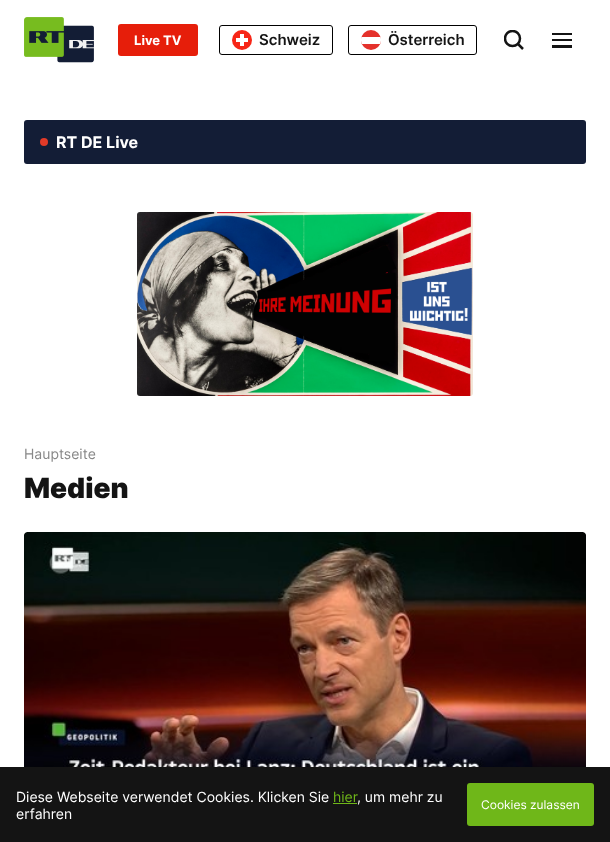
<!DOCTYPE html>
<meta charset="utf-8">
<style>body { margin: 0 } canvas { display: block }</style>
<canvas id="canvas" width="610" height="842"></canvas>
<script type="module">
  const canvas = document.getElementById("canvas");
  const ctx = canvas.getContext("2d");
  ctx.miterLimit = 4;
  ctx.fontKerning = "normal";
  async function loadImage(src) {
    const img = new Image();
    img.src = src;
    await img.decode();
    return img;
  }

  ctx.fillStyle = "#ffffff";
  ctx.fillRect(0, 0, 610, 842);
  ctx.drawImage(await loadImage("img1.png"), 24, 17, 70, 46);
  ctx.fillStyle = "#e61e0a";
  ctx.beginPath();
  ctx.roundRect(118, 24, 80, 32, 3);
  ctx.fill();
  ctx.font = "bold 13px Inter";
  ctx.fillStyle = "#ffffff";
  ctx.fillText("Live TV", 134, 45);
  ctx.beginPath();
  ctx.roundRect(219.5, 25.5, 113, 29, 2.5);
  ctx.strokeStyle = "#000000";
  ctx.stroke();
  ctx.fillStyle = "#f72617";
  ctx.beginPath();
  ctx.arc(242, 40, 10, 0, Math.PI * 2);
  ctx.fill();
  ctx.fillStyle = "#ffffff";
  ctx.fillRect(240, 34, 4, 12);
  ctx.fillRect(236, 38, 12, 4);
  ctx.font = "600 15px Inter";
  ctx.fillStyle = "#141414";
  ctx.fillText("Schweiz", 259, 45);
  ctx.beginPath();
  ctx.roundRect(348.5, 25.5, 128, 29, 2.5);
  ctx.stroke();
  ctx.fillStyle = "#e4312b";
  ctx.beginPath();
  ctx.arc(371, 40, 10, 0, Math.PI * 2);
  ctx.fill();
  ctx.fillStyle = "#ffffff";
  ctx.beginPath();
  ctx.moveTo(362, 44);
  ctx.bezierCurveTo(361, 42, 360.5, 39.5, 361.5, 37);
  ctx.lineTo(380.5, 37);
  ctx.bezierCurveTo(381.5, 39.5, 381, 42, 380, 44);
  ctx.closePath();
  ctx.fill();
  ctx.fillStyle = "#141414";
  ctx.fillText("Österreich", 388, 45);
  ctx.save();
  ctx.beginPath();
  ctx.rect(504, 30, 20, 20);
  ctx.clip();
  ctx.beginPath();
  ctx.arc(512.5, 38.5, 7.5, 0, Math.PI * 2);
  ctx.strokeStyle = "#141414";
  ctx.lineWidth = 2.5;
  ctx.stroke();
  ctx.restore();
  ctx.beginPath();
  ctx.moveTo(518, 44);
  ctx.lineTo(523, 49);
  ctx.strokeStyle = "#141414";
  ctx.lineWidth = 2.5;
  ctx.stroke();
  ctx.fillRect(552, 33, 20, 2);
  ctx.fillRect(552, 39, 20, 2);
  ctx.fillRect(552, 45, 20, 3);
  ctx.fillStyle = "#131d36";
  ctx.beginPath();
  ctx.roundRect(24, 120, 562, 44, 3);
  ctx.fill();
  ctx.fillStyle = "#e13a28";
  ctx.beginPath();
  ctx.arc(44, 142, 4, 0, Math.PI * 2);
  ctx.fill();
  ctx.font = "bold 16px Inter";
  ctx.fillStyle = "#ffffff";
  ctx.fillText("RT DE Live", 56, 148);
  ctx.drawImage(await loadImage("img2.png"), 137, 212, 336, 184);
  ctx.font = "14px Inter";
  ctx.fillStyle = "#888888";
  ctx.fillText("Hauptseite", 24, 459);
  ctx.font = "900 28px Inter";
  ctx.fillStyle = "#141414";
  ctx.fillText("Medien", 24, 498);
  ctx.drawImage(await loadImage("img3.png"), 24, 532, 562, 235);
  ctx.fillRect(0, 767, 610, 75);
  ctx.font = "14px Inter";
  ctx.fillStyle = "#ffffff";
  ctx.fillText("Diese Webseite verwendet Cookies. Klicken Sie", 16, 802);
  ctx.fillStyle = "#6fb719";
  ctx.fillText("hier", 333, 802);
  ctx.fillRect(333, 803, 24, 1);
  ctx.fillStyle = "#ffffff";
  ctx.fillText(", um mehr zu", 357, 802);
  ctx.fillText("erfahren", 16, 819);
  ctx.fillStyle = "#6fb719";
  ctx.beginPath();
  ctx.roundRect(467, 783, 127, 43, 3);
  ctx.fill();
  ctx.font = "12px Inter";
  ctx.fillStyle = "#ffffff";
  ctx.fillText("Cookies zulassen", 481, 809);
</script>
